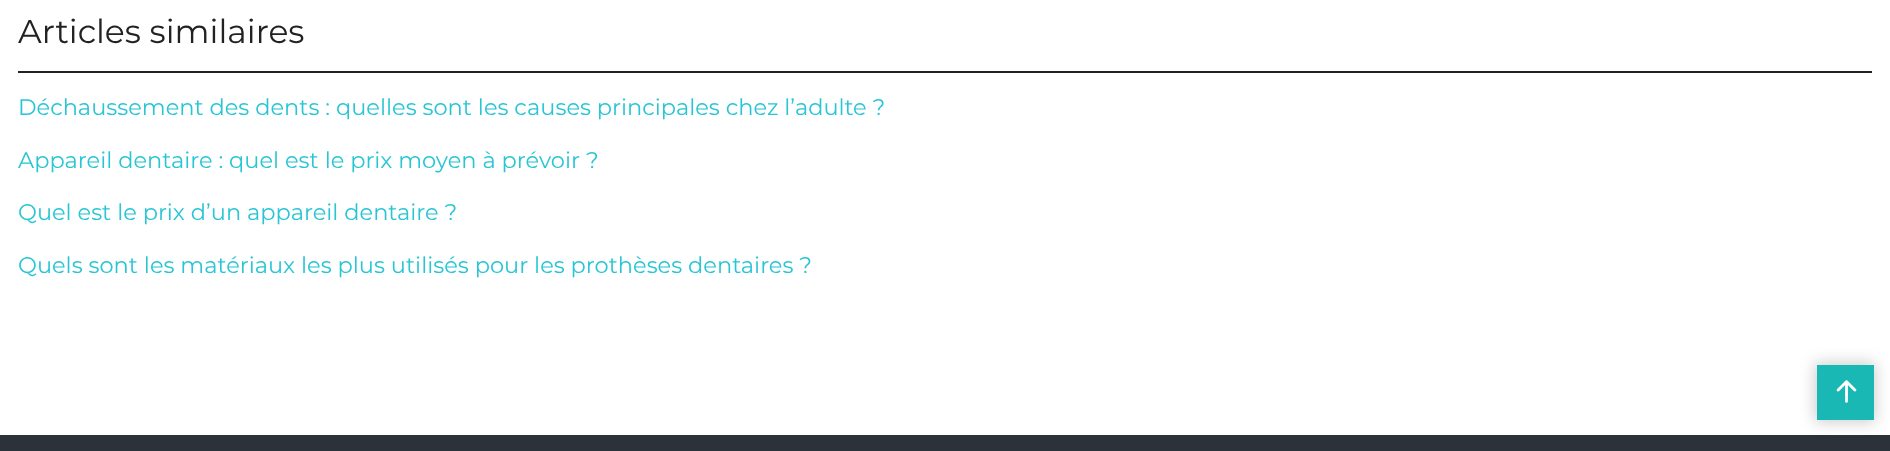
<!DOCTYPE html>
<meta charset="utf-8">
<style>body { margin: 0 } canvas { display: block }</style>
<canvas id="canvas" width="1890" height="451"></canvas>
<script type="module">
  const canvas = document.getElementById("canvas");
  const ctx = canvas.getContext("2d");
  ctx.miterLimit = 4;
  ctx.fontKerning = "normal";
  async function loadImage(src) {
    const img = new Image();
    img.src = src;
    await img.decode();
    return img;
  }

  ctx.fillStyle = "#ffffff";
  ctx.fillRect(0, 0, 1890, 451);
  ctx.fillStyle = "#222222";
  ctx.fillRect(18, 71, 1854, 2);
  ctx.font = "100 33px Montserrat";
  ctx.fillText("Articles similaires", 18, 43);
  ctx.font = "100 22.5px Montserrat";
  ctx.fillStyle = "#28c5d5";
  ctx.fillText("Déchaussement des dents : quelles sont les causes principales chez l’adulte ?", 18, 115);
  ctx.fillText("Appareil dentaire : quel est le prix moyen à prévoir ?", 18, 168);
  ctx.fillText("Quel est le prix d’un appareil dentaire ?", 18, 220);
  ctx.fillText("Quels sont les matériaux les plus utilisés pour les prothèses dentaires ?", 18, 273);
  ctx.fillStyle = "#2b3239";
  ctx.fillRect(0, 435, 1890, 16);
  ctx.fillStyle = "rgba(0, 0, 0, 0.2)";
  ctx.filter = "blur(7.5px)";
  ctx.beginPath();
  ctx.rect(1815, 363, 60, 59);
  ctx.fill();
  ctx.filter = "none";
  ctx.fillStyle = "#19b8b4";
  ctx.fillRect(1817, 365, 57, 55);
  ctx.drawImage(await loadImage("img1.png"), 1836, 380, 21, 23);
</script>
